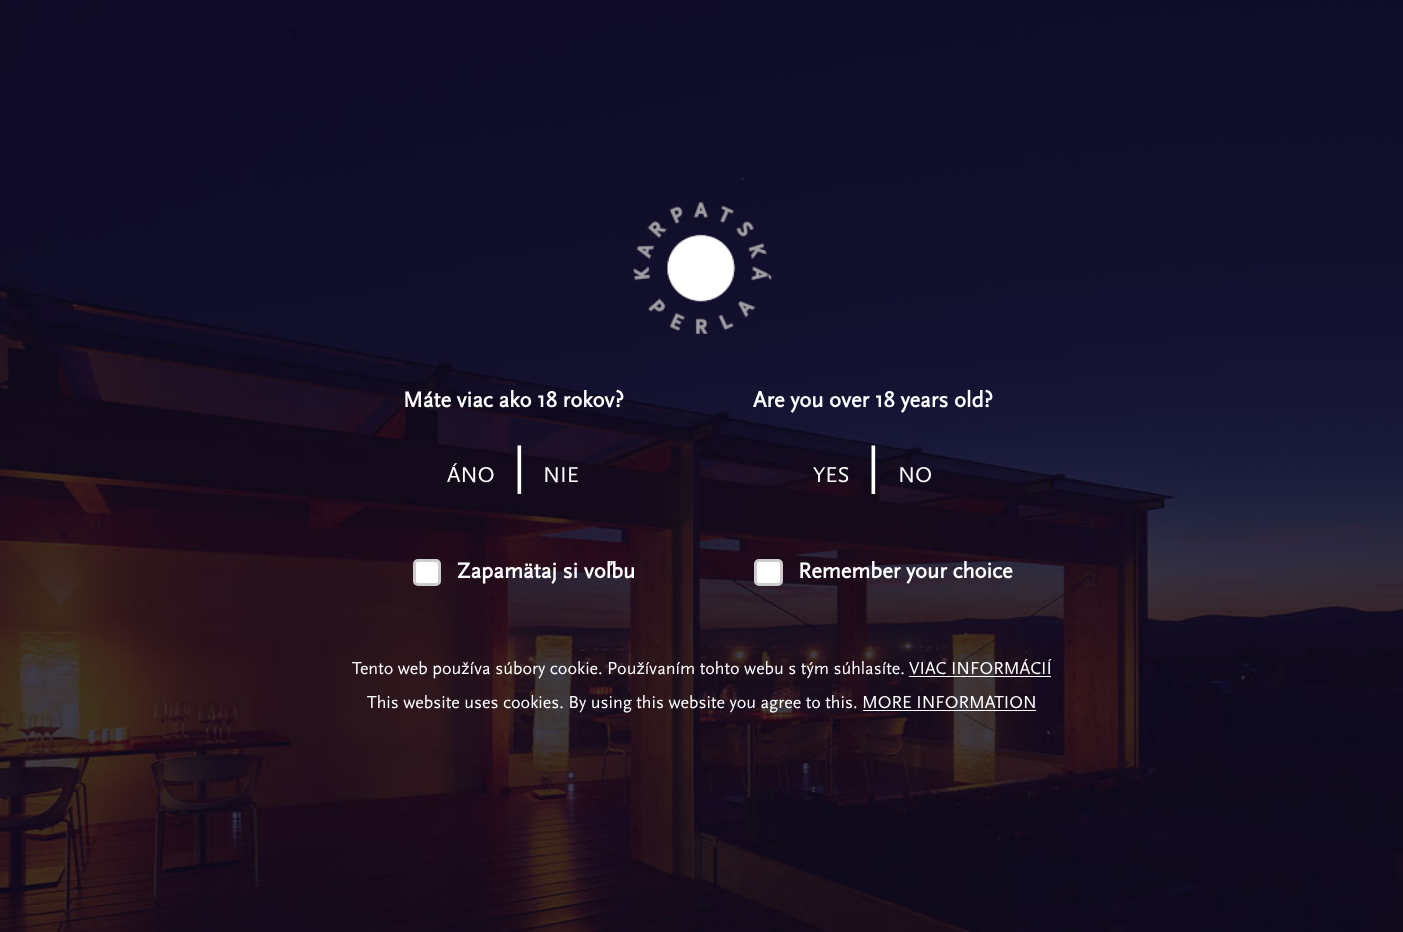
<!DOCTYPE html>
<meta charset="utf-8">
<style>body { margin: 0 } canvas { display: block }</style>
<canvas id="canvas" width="1403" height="932"></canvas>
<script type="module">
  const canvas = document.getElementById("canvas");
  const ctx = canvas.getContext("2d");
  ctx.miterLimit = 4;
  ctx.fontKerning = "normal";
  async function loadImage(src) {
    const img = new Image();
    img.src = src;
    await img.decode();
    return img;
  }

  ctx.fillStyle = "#ffffff";
  ctx.fillRect(0, 0, 1403, 932);
  ctx.drawImage(await loadImage("img1.png"), 0, 0, 1403, 932);
  ctx.drawImage(await loadImage("img2.png"), 633, 202, 139, 132);
  ctx.font = "bold 22.5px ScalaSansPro";
  ctx.fillText("Máte viac ako 18 rokov?", 403, 407);
  ctx.font = "22.5px ScalaSansPro";
  ctx.fillText("ÁNO", 447, 482);
  ctx.font = "50px ScalaSansPro";
  ctx.fillText("|", 513, 482);
  ctx.font = "22.5px ScalaSansPro";
  ctx.fillText("NIE", 543, 482);
  ctx.beginPath();
  ctx.roundRect(414.5, 560.5, 25, 24, 3.5);
  ctx.fill();
  ctx.strokeStyle = "#cccccc";
  ctx.lineWidth = 3;
  ctx.stroke();
  ctx.font = "bold 22.5px ScalaSansPro";
  ctx.fillText("Zapamätaj si voľbu", 457, 578);
  ctx.fillText("Are you over 18 years old?", 753, 407);
  ctx.font = "22.5px ScalaSansPro";
  ctx.fillText("YES", 813, 482);
  ctx.font = "50px ScalaSansPro";
  ctx.fillText("|", 867, 482);
  ctx.font = "22.5px ScalaSansPro";
  ctx.fillText("NO", 898, 482);
  ctx.beginPath();
  ctx.roundRect(755.5, 560.5, 26, 24, 3.5);
  ctx.fill();
  ctx.stroke();
  ctx.font = "bold 22.5px ScalaSansPro";
  ctx.fillText("Remember your choice", 798, 578);
  ctx.font = "18px ScalaSansPro";
  ctx.fillText("Tento web používa súbory cookie. Používaním tohto webu s tým súhlasíte.", 352, 674);
  ctx.fillRect(909, 676, 142, 1);
  ctx.fillText("VIAC INFORMÁCIÍ", 909, 674);
  ctx.fillText("This website uses cookies. By using this website you agree to this.", 367, 708);
  ctx.fillText("MORE INFORMATION", 862, 708);
  ctx.fillRect(863, 710, 173, 1);
</script>
